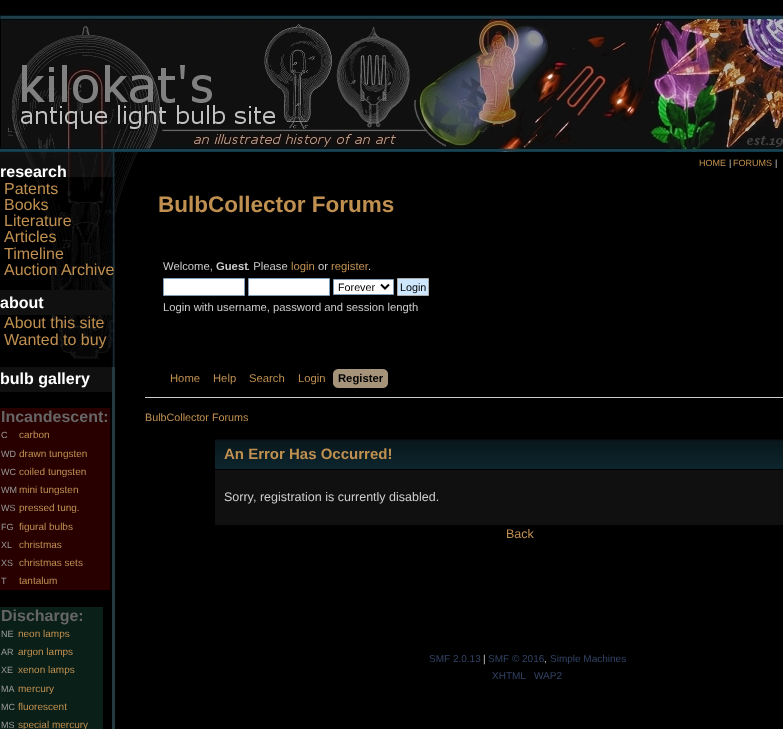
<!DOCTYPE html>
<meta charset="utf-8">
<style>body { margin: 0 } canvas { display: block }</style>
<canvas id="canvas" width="783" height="729"></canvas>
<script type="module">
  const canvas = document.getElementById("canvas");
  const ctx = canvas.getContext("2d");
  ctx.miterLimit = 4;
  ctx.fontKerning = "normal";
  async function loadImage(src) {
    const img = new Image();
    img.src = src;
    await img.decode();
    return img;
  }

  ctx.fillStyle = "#000000";
  ctx.fillRect(0, 0, 783, 729);
  ctx.drawImage(await loadImage("img1.png"), 0, 15, 125, 137);
  ctx.drawImage(await loadImage("img2.png"), 125, 15, 167, 137);
  ctx.drawImage(await loadImage("img3.png"), 292, 15, 118, 137);
  ctx.drawImage(await loadImage("img4.png"), 410, 15, 3, 137);
  ctx.drawImage(await loadImage("img5.png"), 413, 15, 175, 137);
  ctx.drawImage(await loadImage("img6.png"), 588, 15, 101, 137);
  ctx.drawImage(await loadImage("img7.png"), 689, 15, 94, 137);
  ctx.fillStyle = "#253a3f";
  ctx.fillRect(112, 367, 3, 362);
  ctx.drawImage(await loadImage("img8.png"), 0, 152, 115, 215);
  ctx.font = "bold 16px Liberation Sans";
  ctx.fillStyle = "#ffffff";
  ctx.fillText("research", 0, 177);
  ctx.font = "16px Liberation Sans";
  ctx.fillStyle = "#c09050";
  ctx.fillText("Patents", 4, 194);
  ctx.fillText("Books", 4, 210);
  ctx.fillText("Literature", 4, 226);
  ctx.fillText("Articles", 4, 242);
  ctx.fillText("Timeline", 4, 259);
  ctx.fillText("Auction Archive", 4, 275);
  ctx.fillStyle = "#101010";
  ctx.fillRect(0, 290, 112, 25);
  ctx.font = "bold 16px Liberation Sans";
  ctx.fillStyle = "#ffffff";
  ctx.fillText("about", 0, 308);
  ctx.font = "16px Liberation Sans";
  ctx.fillStyle = "#c09050";
  ctx.fillText("About this site", 4, 328);
  ctx.fillText("Wanted to buy", 4, 345);
  ctx.fillStyle = "#101010";
  ctx.fillRect(0, 367, 112, 25);
  ctx.font = "bold 16px Liberation Sans";
  ctx.fillStyle = "#ffffff";
  ctx.fillText("bulb gallery", 0, 384);
  ctx.fillStyle = "#280000";
  ctx.fillRect(0, 408, 110, 182);
  ctx.fillStyle = "#666666";
  ctx.fillText("Incandescent:", 1, 422);
  ctx.font = "9px Liberation Sans";
  ctx.fillStyle = "#999999";
  ctx.fillText("C", 1, 438);
  ctx.font = "10px Liberation Sans";
  ctx.fillStyle = "#c09050";
  ctx.fillText("carbon", 19, 438);
  ctx.font = "9px Liberation Sans";
  ctx.fillStyle = "#999999";
  ctx.fillText("WD", 1, 457);
  ctx.font = "10px Liberation Sans";
  ctx.fillStyle = "#c09050";
  ctx.fillText("drawn tungsten", 19, 457);
  ctx.font = "9px Liberation Sans";
  ctx.fillStyle = "#999999";
  ctx.fillText("WC", 1, 475);
  ctx.font = "10px Liberation Sans";
  ctx.fillStyle = "#c09050";
  ctx.fillText("coiled tungsten", 19, 475);
  ctx.font = "9px Liberation Sans";
  ctx.fillStyle = "#999999";
  ctx.fillText("WM", 1, 493);
  ctx.font = "10px Liberation Sans";
  ctx.fillStyle = "#c09050";
  ctx.fillText("mini tungsten", 19, 493);
  ctx.font = "9px Liberation Sans";
  ctx.fillStyle = "#999999";
  ctx.fillText("WS", 1, 511);
  ctx.font = "10px Liberation Sans";
  ctx.fillStyle = "#c09050";
  ctx.fillText("pressed tung.", 19, 511);
  ctx.font = "9px Liberation Sans";
  ctx.fillStyle = "#999999";
  ctx.fillText("FG", 1, 530);
  ctx.font = "10px Liberation Sans";
  ctx.fillStyle = "#c09050";
  ctx.fillText("figural bulbs", 19, 530);
  ctx.font = "9px Liberation Sans";
  ctx.fillStyle = "#999999";
  ctx.fillText("XL", 1, 548);
  ctx.font = "10px Liberation Sans";
  ctx.fillStyle = "#c09050";
  ctx.fillText("christmas", 19, 548);
  ctx.font = "9px Liberation Sans";
  ctx.fillStyle = "#999999";
  ctx.fillText("XS", 1, 566);
  ctx.font = "10px Liberation Sans";
  ctx.fillStyle = "#c09050";
  ctx.fillText("christmas sets", 19, 566);
  ctx.font = "9px Liberation Sans";
  ctx.fillStyle = "#999999";
  ctx.fillText("T", 1, 584);
  ctx.font = "10px Liberation Sans";
  ctx.fillStyle = "#c09050";
  ctx.fillText("tantalum", 19, 584);
  ctx.fillStyle = "#0a1f18";
  ctx.fillRect(0, 607, 103, 122);
  ctx.font = "bold 16px Liberation Sans";
  ctx.fillStyle = "#666666";
  ctx.fillText("Discharge:", 1, 621);
  ctx.font = "9px Liberation Sans";
  ctx.fillStyle = "#999999";
  ctx.fillText("NE", 1, 637);
  ctx.font = "10px Liberation Sans";
  ctx.fillStyle = "#c09050";
  ctx.fillText("neon lamps", 18, 637);
  ctx.font = "9px Liberation Sans";
  ctx.fillStyle = "#999999";
  ctx.fillText("AR", 1, 655);
  ctx.font = "10px Liberation Sans";
  ctx.fillStyle = "#c09050";
  ctx.fillText("argon lamps", 18, 655);
  ctx.font = "9px Liberation Sans";
  ctx.fillStyle = "#999999";
  ctx.fillText("XE", 1, 673);
  ctx.font = "10px Liberation Sans";
  ctx.fillStyle = "#c09050";
  ctx.fillText("xenon lamps", 18, 673);
  ctx.font = "9px Liberation Sans";
  ctx.fillStyle = "#999999";
  ctx.fillText("MA", 1, 692);
  ctx.font = "10px Liberation Sans";
  ctx.fillStyle = "#c09050";
  ctx.fillText("mercury", 18, 692);
  ctx.font = "9px Liberation Sans";
  ctx.fillStyle = "#999999";
  ctx.fillText("MC", 1, 710);
  ctx.font = "10px Liberation Sans";
  ctx.fillStyle = "#c09050";
  ctx.fillText("fluorescent", 18, 710);
  ctx.font = "9px Liberation Sans";
  ctx.fillStyle = "#999999";
  ctx.fillText("MS", 1, 728);
  ctx.font = "10px Liberation Sans";
  ctx.fillStyle = "#c09050";
  ctx.fillText("special mercury", 18, 728);
  ctx.drawImage(await loadImage("img9.png"), 115, 152, 23, 61);
  ctx.font = "9px Liberation Sans";
  ctx.fillText("HOME", 699, 166);
  ctx.fillStyle = "#cccccc";
  ctx.fillText("|", 729, 166);
  ctx.fillStyle = "#c09050";
  ctx.fillText("FORUMS", 733, 166);
  ctx.fillStyle = "#cccccc";
  ctx.fillText("|", 775, 166);
  ctx.font = "bold 22.5px Liberation Sans";
  ctx.fillStyle = "#c09050";
  ctx.fillText("BulbCollector Forums", 158, 212);
  ctx.font = "11.25px Liberation Sans";
  ctx.fillStyle = "#cccccc";
  ctx.fillText("Welcome,", 163, 270);
  ctx.font = "bold 11.25px Liberation Sans";
  ctx.fillText("Guest", 216, 270);
  ctx.font = "11.25px Liberation Sans";
  ctx.fillText(". Please", 247, 270);
  ctx.fillStyle = "#c09050";
  ctx.fillText("login", 291, 270);
  ctx.fillStyle = "#cccccc";
  ctx.fillText("or", 318, 270);
  ctx.fillStyle = "#c09050";
  ctx.fillText("register", 331, 270);
  ctx.fillStyle = "#cccccc";
  ctx.fillText(".", 368, 270);
  ctx.fillStyle = "#ffffff";
  ctx.beginPath();
  ctx.rect(163.5, 278.5, 81, 17);
  ctx.fill();
  ctx.strokeStyle = "#7f9db9";
  ctx.stroke();
  ctx.beginPath();
  ctx.rect(248.5, 278.5, 81, 17);
  ctx.fill();
  ctx.stroke();
  ctx.beginPath();
  ctx.rect(333.5, 279.5, 60, 15);
  ctx.fill();
  ctx.stroke();
  ctx.beginPath();
  ctx.moveTo(381, 284.5);
  ctx.lineTo(385, 288.5);
  ctx.lineTo(389, 284.5);
  ctx.strokeStyle = "#000000";
  ctx.lineWidth = 2;
  ctx.stroke();
  ctx.font = "10.75px Liberation Sans";
  ctx.fillStyle = "#000000";
  ctx.fillText("Forever", 338, 291);
  ctx.fillStyle = "#cde7ff";
  ctx.beginPath();
  ctx.rect(397.5, 278.5, 31, 17);
  ctx.fill();
  ctx.strokeStyle = "#aaaaaa";
  ctx.lineWidth = 1;
  ctx.stroke();
  ctx.fillStyle = "#000000";
  ctx.fillText("Login", 400, 291);
  ctx.font = "11.25px Liberation Sans";
  ctx.fillStyle = "#cccccc";
  ctx.fillText("Login with username, password and session length", 163, 311);
  ctx.fillStyle = "#c09050";
  ctx.fillText("Home", 170, 382);
  ctx.fillText("Help", 213, 382);
  ctx.fillText("Search", 249, 382);
  ctx.fillText("Login", 298, 382);
  ctx.drawImage(await loadImage("img10.png"), 338, 369, 50, 19);
  ctx.drawImage(await loadImage("img11.png"), 333, 369, 5, 19);
  ctx.font = "bold 11.25px Liberation Sans";
  ctx.fillStyle = "#000000";
  ctx.fillText("Register", 338, 382);
  ctx.fillStyle = "#cccccc";
  ctx.fillRect(145, 397, 638, 1);
  ctx.font = "10.75px Liberation Sans";
  ctx.fillStyle = "#c09050";
  ctx.fillText("BulbCollector Forums", 145, 421);
  ctx.drawImage(await loadImage("img12.png"), 215, 439, 568, 30);
  ctx.font = "bold 15px Liberation Sans";
  ctx.fillText("An Error Has Occurred!", 224, 459);
  ctx.fillStyle = "#101010";
  ctx.fillRect(215, 470, 568, 55);
  ctx.font = "12.5px Liberation Sans";
  ctx.fillStyle = "#cccccc";
  ctx.fillText("Sorry, registration is currently disabled.", 224, 501);
  ctx.fillStyle = "#c09050";
  ctx.fillText("Back", 506, 538);
  ctx.font = "10px Liberation Sans";
  ctx.fillStyle = "#334466";
  ctx.fillText("SMF 2.0.13", 429, 662);
  ctx.fillStyle = "#cccccc";
  ctx.fillText("|", 483, 662);
  ctx.fillStyle = "#334466";
  ctx.fillText("SMF © 2016", 488, 662);
  ctx.fillStyle = "#cccccc";
  ctx.fillText(",", 544, 662);
  ctx.fillStyle = "#334466";
  ctx.fillText("Simple Machines", 550, 662);
  ctx.fillText("XHTML", 492, 679);
  ctx.fillText("WAP2", 534, 679);
</script>
